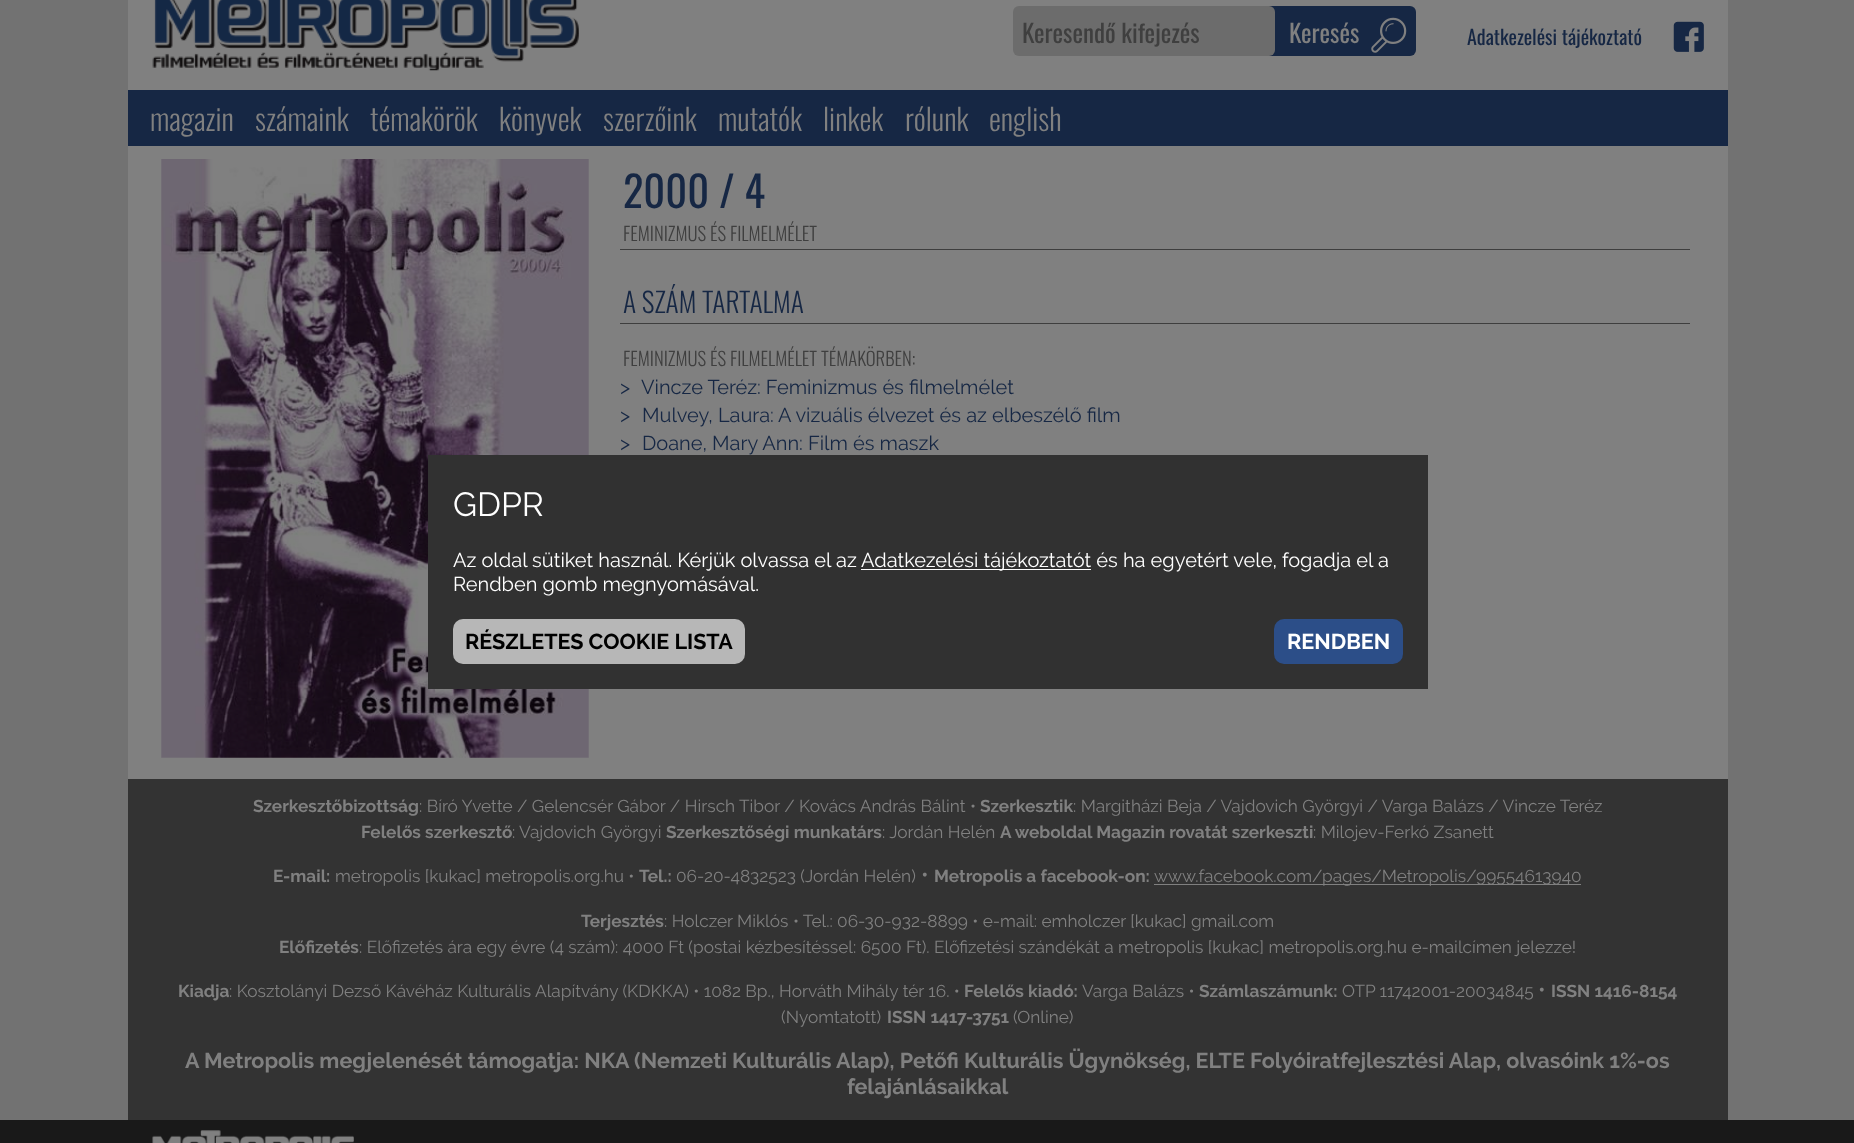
<!DOCTYPE html>
<meta charset="utf-8">
<style>body { margin: 0 } canvas { display: block }</style>
<canvas id="canvas" width="1854" height="1143"></canvas>
<script type="module">
  const canvas = document.getElementById("canvas");
  const ctx = canvas.getContext("2d");
  ctx.miterLimit = 4;
  ctx.fontKerning = "normal";
  async function loadImage(src) {
    const img = new Image();
    img.src = src;
    await img.decode();
    return img;
  }

  ctx.fillStyle = "#727272";
  ctx.fillRect(0, 0, 1854, 1143);
  ctx.fillStyle = "#808080";
  ctx.fillRect(128, 0, 1600, 90);
  ctx.fillStyle = "#162744";
  ctx.fillRect(128, 90, 1600, 56);
  ctx.drawImage(await loadImage("img1.png"), 152, 0, 427, 71);
  ctx.beginPath();
  ctx.roundRect(1269, 6, 147, 50, [0, 6, 6, 0]);
  ctx.fill();
  ctx.fillStyle = "#6c6c6c";
  ctx.beginPath();
  ctx.roundRect(1013, 6, 262, 50, 6);
  ctx.fill();
  ctx.font = "25px Oswald";
  ctx.fillStyle = "#3f3f3f";
  ctx.fillText("Keresendő kifejezés", 1022, 43);
  ctx.fillStyle = "#808080";
  ctx.fillText("Keresés", 1289, 43);
  ctx.drawImage(await loadImage("img2.png"), 1371, 17, 36, 36);
  ctx.font = "20px Oswald";
  ctx.fillStyle = "#162744";
  ctx.fillText("Adatkezelési tájékoztató", 1467, 45);
  ctx.drawImage(await loadImage("img3.png"), 1673, 21, 31, 31);
  ctx.font = "300 30px Oswald";
  ctx.fillStyle = "#808080";
  ctx.fillText("magazin", 150, 131);
  ctx.fillText("számaink", 255, 131);
  ctx.fillText("témakörök", 370, 131);
  ctx.fillText("könyvek", 499, 131);
  ctx.fillText("szerzőink", 603, 131);
  ctx.fillText("mutatók", 718, 131);
  ctx.fillText("linkek", 823, 131);
  ctx.fillText("rólunk", 905, 131);
  ctx.fillText("english", 989, 131);
  ctx.fillRect(128, 146, 1600, 633);
  ctx.drawImage(await loadImage("img4.png"), 161, 159, 428, 599);
  ctx.font = "42.5px Oswald";
  ctx.fillStyle = "#162744";
  ctx.fillText("2000 / 4", 623, 208);
  ctx.font = "300 18.75px Oswald";
  ctx.fillStyle = "#3f3f3f";
  ctx.fillText("FEMINIZMUS ÉS FILMELMÉLET", 623, 241);
  ctx.fillStyle = "#3e3e3e";
  ctx.fillRect(620, 249, 1070, 1);
  ctx.font = "300 27.5px Oswald";
  ctx.fillStyle = "#162744";
  ctx.fillText("A SZÁM TARTALMA", 623, 313);
  ctx.fillStyle = "#3e3e3e";
  ctx.fillRect(620, 323, 1070, 1);
  ctx.font = "300 18.75px Oswald";
  ctx.fillStyle = "#3f3f3f";
  ctx.fillText("FEMINIZMUS ÉS FILMELMÉLET TÉMAKÖRBEN:", 623, 366);
  ctx.font = "20px Raleway";
  ctx.fillStyle = "#162744";
  ctx.fillText(">", 620, 394);
  ctx.fillText("Vincze Teréz: Feminizmus és filmelmélet", 641, 394);
  ctx.fillText(">", 620, 422);
  ctx.fillText("Mulvey, Laura:", 642, 422);
  ctx.fillText("A vizuális élvezet és az elbeszélő film", 778, 422);
  ctx.fillText(">", 620, 450);
  ctx.fillText("Doane, Mary Ann: Film és maszk", 642, 450);
  ctx.fillStyle = "#313131";
  ctx.fillRect(428, 455, 1000, 234);
  ctx.font = "33.5px Raleway";
  ctx.fillStyle = "#ffffff";
  ctx.fillText("GDPR", 453, 516);
  ctx.font = "20px Raleway";
  ctx.fillText("Az oldal sütiket használ. Kérjük olvassa el az", 453, 567);
  ctx.fillRect(861, 569, 230, 1);
  ctx.fillText("Adatkezelési tájékoztatót és ha egyetért vele, fogadja el a", 861, 567);
  ctx.fillText("Rendben gomb megnyomásával.", 453, 591);
  ctx.fillStyle = "#b7b7b7";
  ctx.beginPath();
  ctx.roundRect(453, 619, 292, 45, 10);
  ctx.fill();
  ctx.font = "bold 21.55px Raleway";
  ctx.fillStyle = "#000000";
  ctx.fillText("RÉSZLETES COOKIE LISTA", 465, 649);
  ctx.fillStyle = "#2c4e88";
  ctx.beginPath();
  ctx.roundRect(1274, 619, 129, 45, 10);
  ctx.fill();
  ctx.fillStyle = "#ffffff";
  ctx.fillText("RENDBEN", 1287, 649);
  ctx.fillStyle = "#333333";
  ctx.fillRect(128, 779, 1600, 341);
  ctx.font = "bold 17.25px Raleway";
  ctx.fillStyle = "#808080";
  ctx.fillText("Szerkesztőbizottság", 253, 812);
  ctx.font = "17.25px Raleway";
  ctx.fillText(": Bíró Yvette / Gelencsér Gábor / Hirsch Tibor / Kovács András Bálint •", 419, 812);
  ctx.font = "bold 17.25px Raleway";
  ctx.fillText("Szerkesztik", 980, 812);
  ctx.font = "17.25px Raleway";
  ctx.fillText(": Margitházi Beja / Vajdovich Györgyi / Varga Balázs / Vincze Teréz", 1073, 812);
  ctx.font = "bold 17.25px Raleway";
  ctx.fillText("Felelős szerkesztő", 361, 838);
  ctx.font = "17.25px Raleway";
  ctx.fillText(": Vajdovich Györgyi", 512, 838);
  ctx.font = "bold 17.25px Raleway";
  ctx.fillText("Szerkesztőségi munkatárs", 666, 838);
  ctx.font = "17.25px Raleway";
  ctx.fillText(": Jordán Helén", 882, 838);
  ctx.font = "bold 17.25px Raleway";
  ctx.fillText("A weboldal Magazin rovatát szerkeszti", 1000, 838);
  ctx.font = "17.25px Raleway";
  ctx.fillText(": Milojev-Ferkó Zsanett", 1313, 838);
  ctx.font = "bold 17.25px Raleway";
  ctx.fillText("E-mail:", 273, 882);
  ctx.font = "17.25px Raleway";
  ctx.fillText("metropolis [kukac] metropolis.org.hu •", 335, 882);
  ctx.font = "bold 17.25px Raleway";
  ctx.fillText("Tel.:", 639, 882);
  ctx.font = "17.25px Raleway";
  ctx.fillText("06-20-4832523 (Jordán Helén)", 676, 882);
  ctx.font = "21.55px Raleway";
  ctx.fillText("•", 921, 882);
  ctx.font = "bold 17.25px Raleway";
  ctx.fillText("Metropolis a facebook-on:", 934, 882);
  ctx.fillRect(1154, 884, 427, 1);
  ctx.font = "17.25px Raleway";
  ctx.fillText("www.facebook.com/pages/Metropolis/99554613940", 1154, 882);
  ctx.font = "bold 17.25px Raleway";
  ctx.fillText("Terjesztés", 581, 927);
  ctx.font = "17.25px Raleway";
  ctx.fillText(": Holczer Miklós • Tel.: 06-30-932-8899 • e-mail: emholczer [kukac] gmail.com", 664, 927);
  ctx.font = "bold 17.25px Raleway";
  ctx.fillText("Előfizetés", 279, 953);
  ctx.font = "17.25px Raleway";
  ctx.fillText(": Előfizetés ára egy évre (4 szám): 4000 Ft (postai kézbesítéssel: 6500 Ft). Előfizetési szándékát a metropolis [kukac] metropolis.org.hu e-mailcímen jelezze!", 359, 953);
  ctx.font = "bold 17.25px Raleway";
  ctx.fillText("Kiadja", 178, 997);
  ctx.font = "17.25px Raleway";
  ctx.fillText(": Kosztolányi Dezső Kávéház Kulturális Alapítvány (KDKKA) • 1082 Bp., Horváth Mihály tér 16. •", 229, 997);
  ctx.font = "bold 17.25px Raleway";
  ctx.fillText("Felelős kiadó:", 964, 997);
  ctx.font = "17.25px Raleway";
  ctx.fillText("Varga Balázs •", 1082, 997);
  ctx.font = "bold 17.25px Raleway";
  ctx.fillText("Számlaszámunk:", 1199, 997);
  ctx.font = "17.25px Raleway";
  ctx.fillText("OTP 11742001-20034845", 1342, 997);
  ctx.font = "21.55px Raleway";
  ctx.fillText("•", 1538, 997);
  ctx.font = "bold 17.25px Raleway";
  ctx.fillText("ISSN 1416-8154", 1551, 997);
  ctx.font = "17.25px Raleway";
  ctx.fillText("(Nyomtatott)", 781, 1023);
  ctx.font = "bold 17.25px Raleway";
  ctx.fillText("ISSN 1417-3751", 887, 1023);
  ctx.font = "17.25px Raleway";
  ctx.fillText("(Online)", 1013, 1023);
  ctx.font = "bold 21.55px Raleway";
  ctx.fillText("A Metropolis megjelenését támogatja: NKA (Nemzeti Kulturális Alap), Petőfi Kulturális Ügynökség, ELTE Folyóiratfejlesztési Alap, olvasóink 1%-os", 185, 1068);
  ctx.fillText("felajánlásaikkal", 847, 1094);
  ctx.fillStyle = "#191919";
  ctx.fillRect(0, 1120, 1854, 23);
  ctx.drawImage(await loadImage("img5.png"), 152, 1130, 202, 13);
</script>
